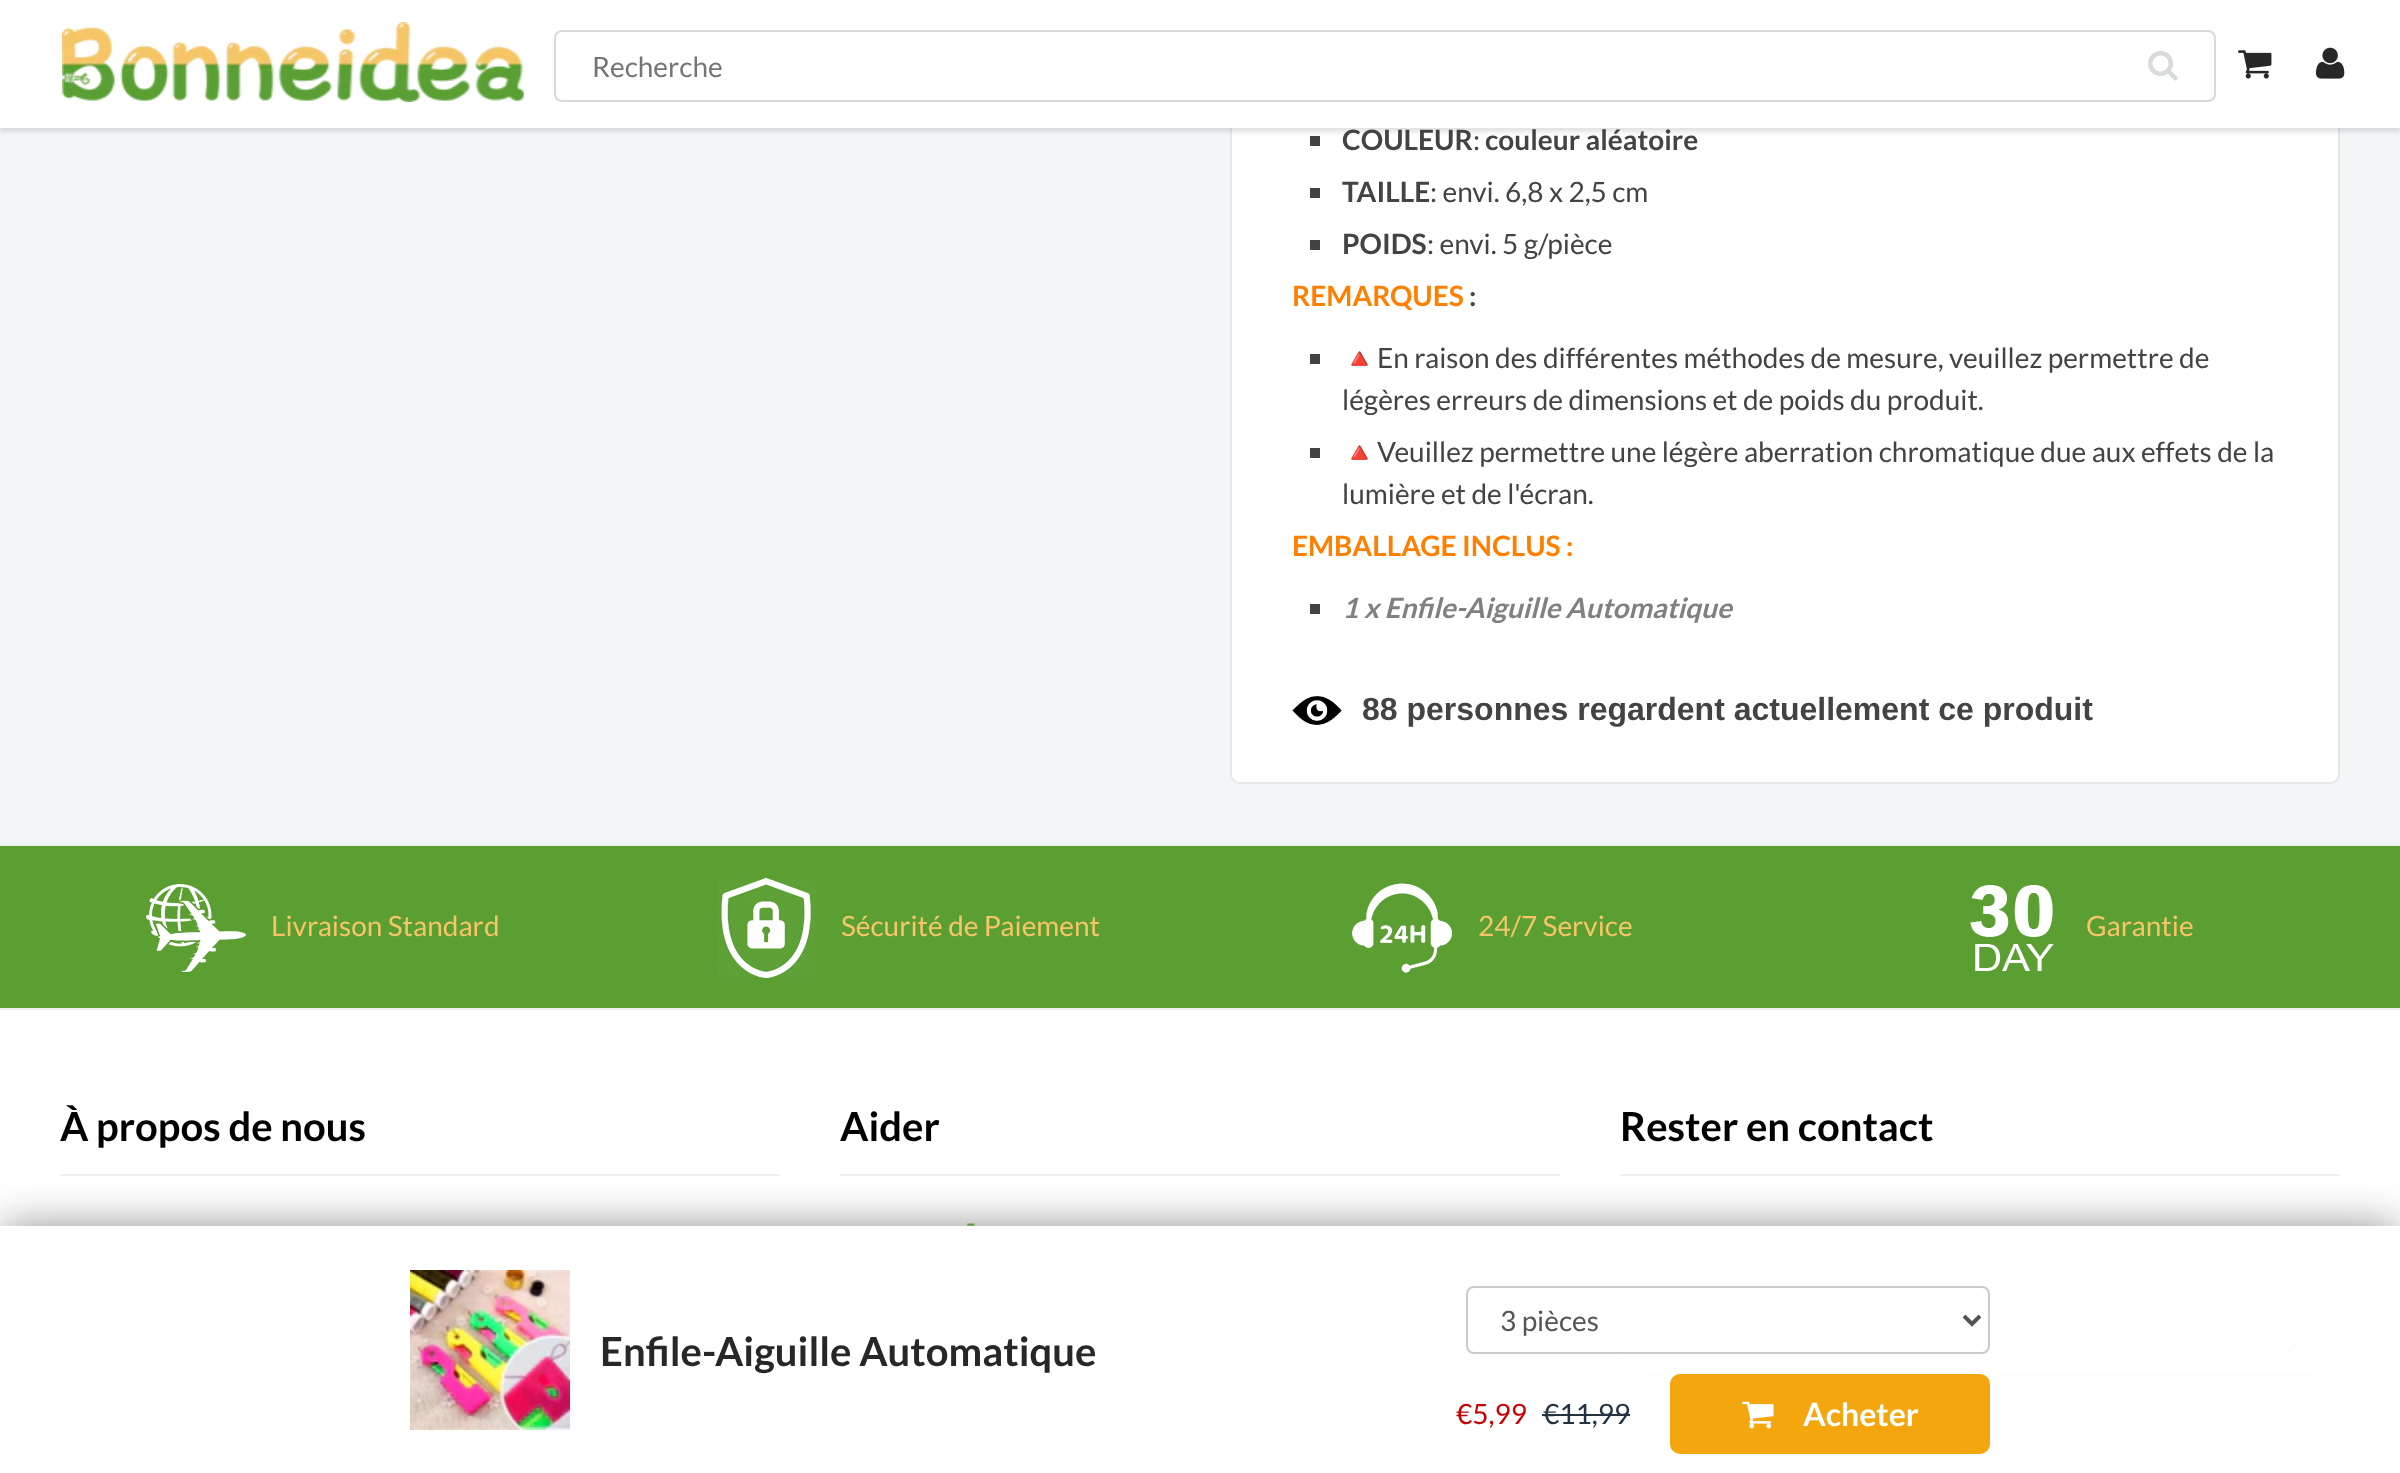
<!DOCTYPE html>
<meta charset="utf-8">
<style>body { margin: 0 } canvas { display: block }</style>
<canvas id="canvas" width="2400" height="1473"></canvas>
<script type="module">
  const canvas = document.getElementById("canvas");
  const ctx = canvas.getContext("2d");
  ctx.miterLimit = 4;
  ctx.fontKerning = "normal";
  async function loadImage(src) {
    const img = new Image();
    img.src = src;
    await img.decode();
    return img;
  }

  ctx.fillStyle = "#ffffff";
  ctx.fillRect(0, 0, 2400, 1473);
  ctx.fillStyle = "#f3f6f6";
  ctx.fillRect(0, 128, 2400, 716);
  ctx.fillStyle = "#ffffff";
  ctx.beginPath();
  ctx.roundRect(1230, -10, 1110, 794, 10);
  ctx.fill();
  ctx.beginPath();
  ctx.roundRect(1231, -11, 1108, 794, 9);
  ctx.strokeStyle = "rgba(11, 25, 28, 0.1)";
  ctx.lineWidth = 2;
  ctx.stroke();
  ctx.fillStyle = "#434343";
  ctx.fillRect(1310, 136, 10, 10);
  ctx.fillStyle = "rgba(11, 25, 28, 0.12)";
  ctx.filter = "blur(2px)";
  ctx.beginPath();
  ctx.rect(0, 4, 2400, 128);
  ctx.fill();
  ctx.filter = "none";
  ctx.fillStyle = "#ffffff";
  ctx.fillRect(0, 0, 2400, 128);
  ctx.drawImage(await loadImage("img1.png"), 62, 22, 462, 80);
  ctx.beginPath();
  ctx.roundRect(555, 31, 1660, 70, 7);
  ctx.strokeStyle = "#d7dbdb";
  ctx.stroke();
  ctx.font = "28px Lato";
  ctx.fillStyle = "#757575";
  ctx.fillText("Recherche", 592, 77);
  ctx.drawImage(await loadImage("img2.png"), 2148, 50, 30, 31);
  ctx.drawImage(await loadImage("img3.png"), 2238, 50, 34, 29);
  ctx.drawImage(await loadImage("img4.png"), 2316, 47, 29, 32);
  ctx.font = "bold 28px Lato";
  ctx.fillStyle = "#434343";
  ctx.fillText("COULEUR", 1342, 150);
  ctx.font = "28px Lato";
  ctx.fillText(":", 1473, 150);
  ctx.font = "bold 28px Lato";
  ctx.fillText("couleur aléatoire", 1485, 150);
  ctx.fillRect(1310, 188, 10, 10);
  ctx.fillText("TAILLE", 1342, 202);
  ctx.font = "28px Lato";
  ctx.fillText(": envi. 6,8 x 2,5 cm", 1430, 202);
  ctx.fillRect(1310, 240, 10, 10);
  ctx.font = "bold 28px Lato";
  ctx.fillText("POIDS", 1342, 254);
  ctx.font = "28px Lato";
  ctx.fillText(": envi. 5 g/pièce", 1427, 254);
  ctx.font = "bold 28px Lato";
  ctx.fillStyle = "#ff8000";
  ctx.fillText("REMARQUES", 1292, 306);
  ctx.fillStyle = "#434343";
  ctx.fillText(":", 1469, 306);
  ctx.fillRect(1310, 354, 10, 10);
  ctx.font = "28px Noto Color Emoji";
  ctx.fillText("🔺", 1342, 368);
  ctx.font = "28px Lato";
  ctx.fillText("En raison des différentes méthodes de mesure, veuillez permettre de", 1377, 368);
  ctx.fillText("légères erreurs de dimensions et de poids du produit.", 1342, 410);
  ctx.fillRect(1310, 448, 10, 10);
  ctx.font = "28px Noto Color Emoji";
  ctx.fillText("🔺", 1342, 462);
  ctx.font = "28px Lato";
  ctx.fillText("Veuillez permettre une légère aberration chromatique due aux effets de la", 1377, 462);
  ctx.fillText("lumière et de l'écran.", 1342, 504);
  ctx.font = "bold 28px Lato";
  ctx.fillStyle = "#ff8000";
  ctx.fillText("EMBALLAGE INCLUS :", 1292, 556);
  ctx.fillStyle = "#434343";
  ctx.fillRect(1310, 604, 10, 10);
  ctx.font = "italic bold 28px Lato";
  ctx.fillStyle = "#808080";
  ctx.fillText("1 x Enfile-Aiguille Automatique", 1342, 618);
  ctx.drawImage(await loadImage("img5.png"), 1292, 696, 50, 29);
  ctx.font = "bold 32px Liberation Sans";
  ctx.fillStyle = "#434343";
  ctx.fillText("88 personnes regardent actuellement ce produit", 1362, 720);
  ctx.fillStyle = "#eeeeee";
  ctx.fillRect(60, 1174, 720, 2);
  ctx.fillRect(840, 1174, 720, 2);
  ctx.fillRect(1620, 1174, 720, 2);
  ctx.beginPath();
  ctx.roundRect(1621, 1317, 718, 58, 29);
  ctx.stroke();
  ctx.drawImage(await loadImage("img12.png"), 2279, 1340, 22, 16);
  ctx.save();
  ctx.beginPath();
  ctx.rect(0, 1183, 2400, 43);
  ctx.clip();
  ctx.fillStyle = "#888888";
  ctx.filter = "blur(22px)";
  ctx.beginPath();
  ctx.rect(2, 1228, 2396, 244);
  ctx.fill();
  ctx.filter = "none";
  ctx.restore();
  ctx.fillStyle = "rgba(255, 255, 255, 0.95)";
  ctx.fillRect(1620, 1316, 720, 60);
  ctx.drawImage(await loadImage("img6.png"), 410, 1270, 160, 160);
  ctx.font = "bold 40px Lato";
  ctx.fillStyle = "#282727";
  ctx.fillText("Enfile-Aiguille Automatique", 600, 1366);
  ctx.beginPath();
  ctx.roundRect(1467, 1287, 522, 66, 7);
  ctx.strokeStyle = "#cccccc";
  ctx.stroke();
  ctx.beginPath();
  ctx.moveTo(1964, 1316);
  ctx.lineTo(1972, 1324);
  ctx.lineTo(1980, 1316);
  ctx.strokeStyle = "#555555";
  ctx.lineWidth = 4;
  ctx.stroke();
  ctx.font = "28px Lato";
  ctx.fillStyle = "#555555";
  ctx.fillText("3 pièces", 1500, 1331);
  ctx.fillStyle = "#c90000";
  ctx.fillText("€5,99", 1456, 1424);
  ctx.fillStyle = "#233341";
  ctx.fillText("€11,99", 1543, 1424);
  ctx.fillRect(1542, 1414, 88, 2);
  ctx.fillStyle = "#f4a60f";
  ctx.beginPath();
  ctx.roundRect(1670, 1374, 320, 80, 10);
  ctx.fill();
  ctx.drawImage(await loadImage("img7.png"), 1742, 1401, 32, 28);
  ctx.font = "bold 32px Lato";
  ctx.fillStyle = "#ffffff";
  ctx.fillText("Acheter", 1803, 1426);
  ctx.fillStyle = "#5b9f33";
  ctx.fillRect(0, 846, 2400, 162);
  ctx.fillStyle = "#ecefef";
  ctx.fillRect(0, 844, 2400, 2);
  ctx.drawImage(await loadImage("img8.png"), 146, 884, 100, 88);
  ctx.font = "28px Lato";
  ctx.fillStyle = "#f7c667";
  ctx.fillText("Livraison Standard", 271, 936);
  ctx.drawImage(await loadImage("img9.png"), 717, 878, 99, 100);
  ctx.fillText("Sécurité de Paiement", 841, 936);
  ctx.drawImage(await loadImage("img10.png"), 1352, 883, 100, 90);
  ctx.fillText("24/7 Service", 1478, 936);
  ctx.drawImage(await loadImage("img11.png"), 1970, 885, 84, 86);
  ctx.fillText("Garantie", 2086, 936);
  ctx.fillStyle = "#ecefef";
  ctx.fillRect(0, 1008, 2400, 2);
  ctx.font = "bold 40px Lato";
  ctx.fillStyle = "#000000";
  ctx.fillText("À propos de nous", 60, 1141);
  ctx.fillText("Aider", 840, 1141);
  ctx.font = "28px Lato";
  ctx.fillStyle = "#5b9f33";
  ctx.fillText("-", 966, 1233);
  ctx.font = "bold 40px Lato";
  ctx.fillStyle = "#000000";
  ctx.fillText("Rester en contact", 1620, 1141);
</script>
